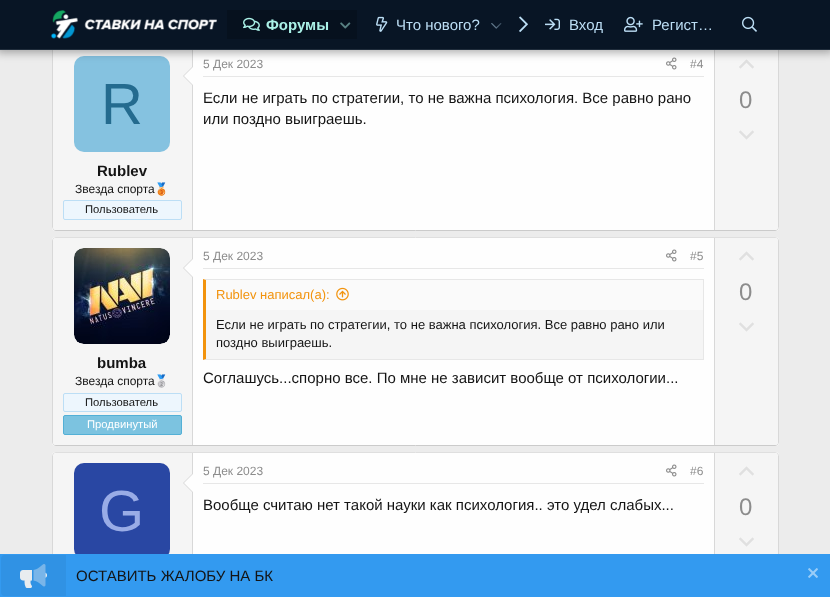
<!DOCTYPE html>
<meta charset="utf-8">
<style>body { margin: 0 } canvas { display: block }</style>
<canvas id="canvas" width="830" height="597"></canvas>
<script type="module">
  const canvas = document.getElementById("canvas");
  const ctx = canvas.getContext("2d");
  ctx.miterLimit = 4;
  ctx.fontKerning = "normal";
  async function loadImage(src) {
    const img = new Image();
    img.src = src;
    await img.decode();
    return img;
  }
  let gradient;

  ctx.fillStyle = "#ececec";
  ctx.fillRect(0, 0, 830, 597);
  ctx.fillStyle = "#fefefe";
  ctx.beginPath();
  ctx.roundRect(52, 45, 727, 186, 4);
  ctx.fill();
  ctx.beginPath();
  ctx.moveTo(777.5, 46.5);
  ctx.lineTo(778.5, 49);
  ctx.lineTo(778.5, 227.5);
  ctx.lineTo(777.5, 229.5);
  ctx.strokeStyle = "#d8d8d8";
  ctx.stroke();
  ctx.beginPath();
  ctx.moveTo(777.5, 229.5);
  ctx.bezierCurveTo(777, 230, 776, 230.5, 775, 230.5);
  ctx.lineTo(56, 230.5);
  ctx.bezierCurveTo(55, 230.5, 54, 230, 53.5, 229.5);
  ctx.strokeStyle = "#cbcbcb";
  ctx.stroke();
  ctx.beginPath();
  ctx.moveTo(53.5, 229.5);
  ctx.lineTo(52.5, 227);
  ctx.lineTo(52.5, 48.5);
  ctx.lineTo(53.5, 46.5);
  ctx.strokeStyle = "#d8d8d8";
  ctx.stroke();
  ctx.fillStyle = "#f5f5f5";
  ctx.beginPath();
  ctx.roundRect(53, 46, 140, 184, [3, 0, 0, 3]);
  ctx.fill();
  ctx.fillStyle = "#d8d8d8";
  ctx.fillRect(192, 46, 1, 184);
  ctx.fillStyle = "#85c2e0";
  ctx.beginPath();
  ctx.roundRect(74, 56, 96, 96, 10);
  ctx.fill();
  ctx.drawImage(await loadImage("img10.png"), 666, 57, 11, 13);
  ctx.fillStyle = "#f5f5f5";
  ctx.beginPath();
  ctx.roundRect(714, 46, 64, 184, [0, 3, 3, 0]);
  ctx.fill();
  ctx.fillStyle = "#d8d8d8";
  ctx.fillRect(714, 46, 1, 184);
  ctx.drawImage(await loadImage("img11.png"), 739, 59, 15, 10);
  ctx.fillStyle = "rgba(0, 0, 0, 0.3)";
  ctx.filter = "blur(4px)";
  ctx.beginPath();
  ctx.rect(-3, -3, 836, 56);
  ctx.fill();
  ctx.filter = "none";
  ctx.fillStyle = "#081525";
  ctx.fillRect(0, 0, 830, 49);
  ctx.fillStyle = "#1f2c3b";
  ctx.fillRect(0, 49, 830, 1);
  ctx.drawImage(await loadImage("img1.png"), 50, 10, 167, 29);
  ctx.fillStyle = "#06111e";
  ctx.fillRect(227, 10, 130, 29);
  ctx.drawImage(await loadImage("img2.png"), 243, 17, 17, 14);
  ctx.font = "bold 15px Liberation Sans";
  ctx.fillStyle = "#aaf1e7";
  ctx.fillText("Форумы", 266, 30);
  ctx.drawImage(await loadImage("img3.png"), 340, 22, 11, 7);
  ctx.drawImage(await loadImage("img4.png"), 376, 16, 12, 16);
  ctx.font = "15px Liberation Sans";
  ctx.fillStyle = "#bcdef5";
  ctx.fillText("Что нового?", 396, 30);
  ctx.drawImage(await loadImage("img5.png"), 491, 23, 11, 6);
  gradient = ctx.createLinearGradient(495, 25, 535, 25);
  gradient.addColorStop(0, "rgba(8, 21, 37, 0)");
  gradient.addColorStop(0.33, "#081525");
  ctx.fillStyle = gradient;
  ctx.fillRect(495, 23, 7, 6);
  ctx.drawImage(await loadImage("img6.png"), 519, 16, 9, 16);
  ctx.drawImage(await loadImage("img7.png"), 545, 18, 15, 12);
  ctx.fillStyle = "#bcdef5";
  ctx.fillText("Вход", 569, 30);
  ctx.drawImage(await loadImage("img8.png"), 624, 16, 19, 16);
  ctx.fillText("Регист…", 652, 30);
  ctx.drawImage(await loadImage("img9.png"), 742, 16, 15, 16);
  ctx.fillStyle = "#d8d8d8";
  ctx.beginPath();
  ctx.moveTo(193, 66);
  ctx.lineTo(193, 86);
  ctx.lineTo(183, 76);
  ctx.closePath();
  ctx.fill();
  ctx.fillStyle = "#fefefe";
  ctx.beginPath();
  ctx.moveTo(193, 67);
  ctx.lineTo(193, 85);
  ctx.lineTo(184, 76);
  ctx.closePath();
  ctx.fill();
  ctx.font = "58px Liberation Sans";
  ctx.fillStyle = "#246b8f";
  ctx.fillText("R", 101, 124);
  ctx.font = "bold 15px Liberation Sans";
  ctx.fillStyle = "#141414";
  ctx.fillText("Rublev", 97, 176);
  ctx.font = "12px Liberation Sans";
  ctx.fillText("Звезда спорта", 75, 193);
  ctx.font = "12px Noto Color Emoji";
  ctx.fillText("🥉", 154, 193);
  ctx.fillStyle = "#edf6fd";
  ctx.beginPath();
  ctx.roundRect(63.5, 200.5, 118, 19, 1.5);
  ctx.fill();
  ctx.strokeStyle = "#bcdef5";
  ctx.stroke();
  ctx.font = "11.25px Liberation Sans";
  ctx.fillStyle = "#141414";
  ctx.fillText("Пользователь", 85, 213);
  ctx.fillStyle = "#e7e7e7";
  ctx.fillRect(203, 76, 501, 1);
  ctx.font = "12px Liberation Sans";
  ctx.fillStyle = "#8c8c8c";
  ctx.fillText("5 Дек 2023", 203, 68);
  ctx.fillText("#4", 690, 68);
  ctx.font = "15px Liberation Sans";
  ctx.fillStyle = "#141414";
  ctx.fillText("Если не играть по стратегии, то не важна психология. Все равно рано", 203, 103);
  ctx.fillText("или поздно выиграешь.", 203, 124);
  ctx.font = "24px Liberation Sans";
  ctx.fillStyle = "#8c8c8c";
  ctx.fillText("0", 739, 108);
  ctx.drawImage(await loadImage("img12.png"), 739, 130, 15, 10);
  ctx.fillStyle = "#fefefe";
  ctx.beginPath();
  ctx.roundRect(52, 237, 727, 209, 4);
  ctx.fill();
  ctx.beginPath();
  ctx.moveTo(53.5, 238.5);
  ctx.bezierCurveTo(54, 238, 55, 237.5, 56, 237.5);
  ctx.lineTo(775, 237.5);
  ctx.bezierCurveTo(776, 237.5, 777, 238, 777.5, 238.5);
  ctx.strokeStyle = "#dfdfdf";
  ctx.stroke();
  ctx.beginPath();
  ctx.moveTo(777.5, 238.5);
  ctx.bezierCurveTo(778, 239, 778.5, 240, 778.5, 241);
  ctx.lineTo(778.5, 442);
  ctx.bezierCurveTo(778.5, 443, 778, 444, 777.5, 444.5);
  ctx.strokeStyle = "#d8d8d8";
  ctx.stroke();
  ctx.beginPath();
  ctx.moveTo(777.5, 444.5);
  ctx.bezierCurveTo(777, 445, 776, 445.5, 775, 445.5);
  ctx.lineTo(56, 445.5);
  ctx.bezierCurveTo(55, 445.5, 54, 445, 53.5, 444.5);
  ctx.strokeStyle = "#cbcbcb";
  ctx.stroke();
  ctx.beginPath();
  ctx.moveTo(53.5, 444.5);
  ctx.bezierCurveTo(53, 444, 52.5, 443, 52.5, 442);
  ctx.lineTo(52.5, 241);
  ctx.bezierCurveTo(52.5, 240, 53, 239, 53.5, 238.5);
  ctx.strokeStyle = "#d8d8d8";
  ctx.stroke();
  ctx.fillStyle = "#e7e7e7";
  ctx.fillRect(203, 268, 501, 1);
  ctx.font = "12px Liberation Sans";
  ctx.fillStyle = "#8c8c8c";
  ctx.fillText("5 Дек 2023", 203, 260);
  ctx.drawImage(await loadImage("img10.png"), 666, 249, 11, 13);
  ctx.fillText("#5", 690, 260);
  ctx.fillStyle = "#f5f5f5";
  ctx.fillRect(206, 310, 497, 49);
  ctx.fillStyle = "#e7e7e7";
  ctx.beginPath();
  ctx.moveTo(203, 279);
  ctx.lineTo(704, 279);
  ctx.lineTo(703, 280);
  ctx.lineTo(206, 280);
  ctx.closePath();
  ctx.fill();
  ctx.fillRect(703, 279, 1, 81);
  ctx.beginPath();
  ctx.moveTo(704, 360);
  ctx.lineTo(203, 360);
  ctx.lineTo(206, 359);
  ctx.lineTo(703, 359);
  ctx.closePath();
  ctx.fill();
  ctx.fillStyle = "#f2930d";
  ctx.beginPath();
  ctx.moveTo(203, 360);
  ctx.lineTo(203, 279);
  ctx.lineTo(206, 280);
  ctx.lineTo(206, 359);
  ctx.closePath();
  ctx.fill();
  ctx.fillStyle = "#fafafa";
  ctx.fillRect(206, 280, 497, 30);
  ctx.font = "13px Liberation Sans";
  ctx.fillStyle = "#f2930d";
  ctx.fillText("Rublev написал(а):", 216, 299);
  ctx.drawImage(await loadImage("img13.png"), 336, 287, 13, 14);
  ctx.fillStyle = "#141414";
  ctx.fillText("Если не играть по стратегии, то не важна психология. Все равно рано или", 216, 329);
  ctx.fillText("поздно выиграешь.", 216, 347);
  ctx.font = "15px Liberation Sans";
  ctx.fillText("Соглашусь...спорно все. По мне не зависит вообще от психологии...", 203, 383);
  ctx.fillStyle = "#f5f5f5";
  ctx.beginPath();
  ctx.roundRect(714, 238, 64, 207, [0, 3, 3, 0]);
  ctx.fill();
  ctx.fillStyle = "#d8d8d8";
  ctx.fillRect(714, 238, 1, 207);
  ctx.drawImage(await loadImage("img11.png"), 739, 251, 15, 10);
  ctx.font = "24px Liberation Sans";
  ctx.fillStyle = "#8c8c8c";
  ctx.fillText("0", 739, 300);
  ctx.drawImage(await loadImage("img12.png"), 739, 322, 15, 10);
  ctx.fillStyle = "#f5f5f5";
  ctx.beginPath();
  ctx.roundRect(53, 238, 140, 207, [3, 0, 0, 3]);
  ctx.fill();
  ctx.fillStyle = "#d8d8d8";
  ctx.fillRect(192, 238, 1, 207);
  ctx.fillStyle = "#fefefe";
  ctx.beginPath();
  ctx.roundRect(74, 248, 96, 96, 10);
  ctx.fill();
  ctx.drawImage(await loadImage("img14.png"), 74, 248, 96, 96);
  ctx.fillStyle = "#d8d8d8";
  ctx.beginPath();
  ctx.moveTo(193, 258);
  ctx.lineTo(193, 278);
  ctx.lineTo(183, 268);
  ctx.closePath();
  ctx.fill();
  ctx.fillStyle = "#fefefe";
  ctx.beginPath();
  ctx.moveTo(193, 259);
  ctx.lineTo(193, 277);
  ctx.lineTo(184, 268);
  ctx.closePath();
  ctx.fill();
  ctx.font = "bold 15px Liberation Sans";
  ctx.fillStyle = "#141414";
  ctx.fillText("bumba", 97, 368);
  ctx.font = "12px Liberation Sans";
  ctx.fillText("Звезда спорта", 75, 385);
  ctx.font = "12px Noto Color Emoji";
  ctx.fillText("🥈", 154, 385);
  ctx.fillStyle = "#edf6fd";
  ctx.beginPath();
  ctx.roundRect(63.5, 393.5, 118, 18, 1.5);
  ctx.fill();
  ctx.strokeStyle = "#bcdef5";
  ctx.stroke();
  ctx.font = "11.25px Liberation Sans";
  ctx.fillStyle = "#141414";
  ctx.fillText("Пользователь", 85, 406);
  ctx.fillStyle = "#7cc3e0";
  ctx.beginPath();
  ctx.roundRect(63.5, 415.5, 118, 19, 1.5);
  ctx.fill();
  ctx.strokeStyle = "#53b0d6";
  ctx.stroke();
  ctx.fillStyle = "#ffffff";
  ctx.fillText("Продвинутый", 87, 428);
  ctx.fillStyle = "#fefefe";
  ctx.beginPath();
  ctx.roundRect(52, 452, 727, 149, 4);
  ctx.fill();
  ctx.beginPath();
  ctx.moveTo(53.5, 453.5);
  ctx.bezierCurveTo(54, 453, 55, 452.5, 56, 452.5);
  ctx.lineTo(775, 452.5);
  ctx.bezierCurveTo(776, 452.5, 777, 453, 777.5, 453.5);
  ctx.strokeStyle = "#dfdfdf";
  ctx.stroke();
  ctx.beginPath();
  ctx.moveTo(777.5, 453.5);
  ctx.lineTo(778.5, 455.5);
  ctx.lineTo(778.5, 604.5);
  ctx.lineTo(778.5, 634);
  ctx.lineTo(777.5, 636.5);
  ctx.strokeStyle = "#d8d8d8";
  ctx.stroke();
  ctx.beginPath();
  ctx.moveTo(53.5, 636.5);
  ctx.lineTo(52.5, 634);
  ctx.lineTo(52.5, 455.5);
  ctx.lineTo(53.5, 453.5);
  ctx.stroke();
  ctx.fillStyle = "#f5f5f5";
  ctx.beginPath();
  ctx.moveTo(56, 453);
  ctx.lineTo(193, 453);
  ctx.lineTo(193, 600);
  ctx.lineTo(56, 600);
  ctx.bezierCurveTo(54.5, 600, 53, 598.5, 53, 597);
  ctx.lineTo(53, 456);
  ctx.bezierCurveTo(53, 454.5, 54.5, 453, 56, 453);
  ctx.closePath();
  ctx.fill();
  ctx.fillStyle = "#d8d8d8";
  ctx.fillRect(192, 453, 1, 101);
  ctx.beginPath();
  ctx.moveTo(193, 473);
  ctx.lineTo(193, 493);
  ctx.lineTo(183, 483);
  ctx.closePath();
  ctx.fill();
  ctx.fillStyle = "#fefefe";
  ctx.beginPath();
  ctx.moveTo(193, 474);
  ctx.lineTo(193, 492);
  ctx.lineTo(184, 483);
  ctx.closePath();
  ctx.fill();
  ctx.fillStyle = "#2947a3";
  ctx.beginPath();
  ctx.roundRect(74, 463, 96, 96, 10);
  ctx.fill();
  ctx.font = "58px Liberation Sans";
  ctx.fillStyle = "#99ace6";
  ctx.fillText("G", 99, 531);
  ctx.fillStyle = "#e7e7e7";
  ctx.fillRect(203, 483, 501, 1);
  ctx.font = "12px Liberation Sans";
  ctx.fillStyle = "#8c8c8c";
  ctx.fillText("5 Дек 2023", 203, 475);
  ctx.drawImage(await loadImage("img10.png"), 666, 464, 11, 13);
  ctx.fillText("#6", 690, 475);
  ctx.font = "15px Liberation Sans";
  ctx.fillStyle = "#141414";
  ctx.fillText("Вообще считаю нет такой науки как психология.. это удел слабых...", 203, 510);
  ctx.fillStyle = "#f5f5f5";
  ctx.beginPath();
  ctx.moveTo(714, 453);
  ctx.lineTo(775, 453);
  ctx.bezierCurveTo(776.5, 453, 778, 454.5, 778, 456);
  ctx.lineTo(778, 597);
  ctx.bezierCurveTo(778, 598.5, 776.5, 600, 775, 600);
  ctx.lineTo(714, 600);
  ctx.closePath();
  ctx.fill();
  ctx.fillStyle = "#d8d8d8";
  ctx.fillRect(714, 453, 1, 101);
  ctx.drawImage(await loadImage("img11.png"), 739, 466, 15, 10);
  ctx.font = "24px Liberation Sans";
  ctx.fillStyle = "#8c8c8c";
  ctx.fillText("0", 739, 515);
  ctx.drawImage(await loadImage("img12.png"), 739, 537, 15, 10);
  ctx.fillStyle = "#339af0";
  ctx.fillRect(0, 554, 830, 43);
  ctx.fillStyle = "#3092e4";
  ctx.beginPath();
  ctx.roundRect(1, 555, 65, 41, [4, 0, 0, 4]);
  ctx.fill();
  ctx.drawImage(await loadImage("img16.png"), 20, 570, 27, 18);
  ctx.drawImage(await loadImage("img15.png"), 33, 564, 13, 23);
  ctx.font = "15px Liberation Sans";
  ctx.fillStyle = "#141414";
  ctx.fillText("ОСТАВИТЬ ЖАЛОБУ НА БК", 76, 581);
  ctx.drawImage(await loadImage("img17.png"), 808, 568, 10, 10);
</script>
